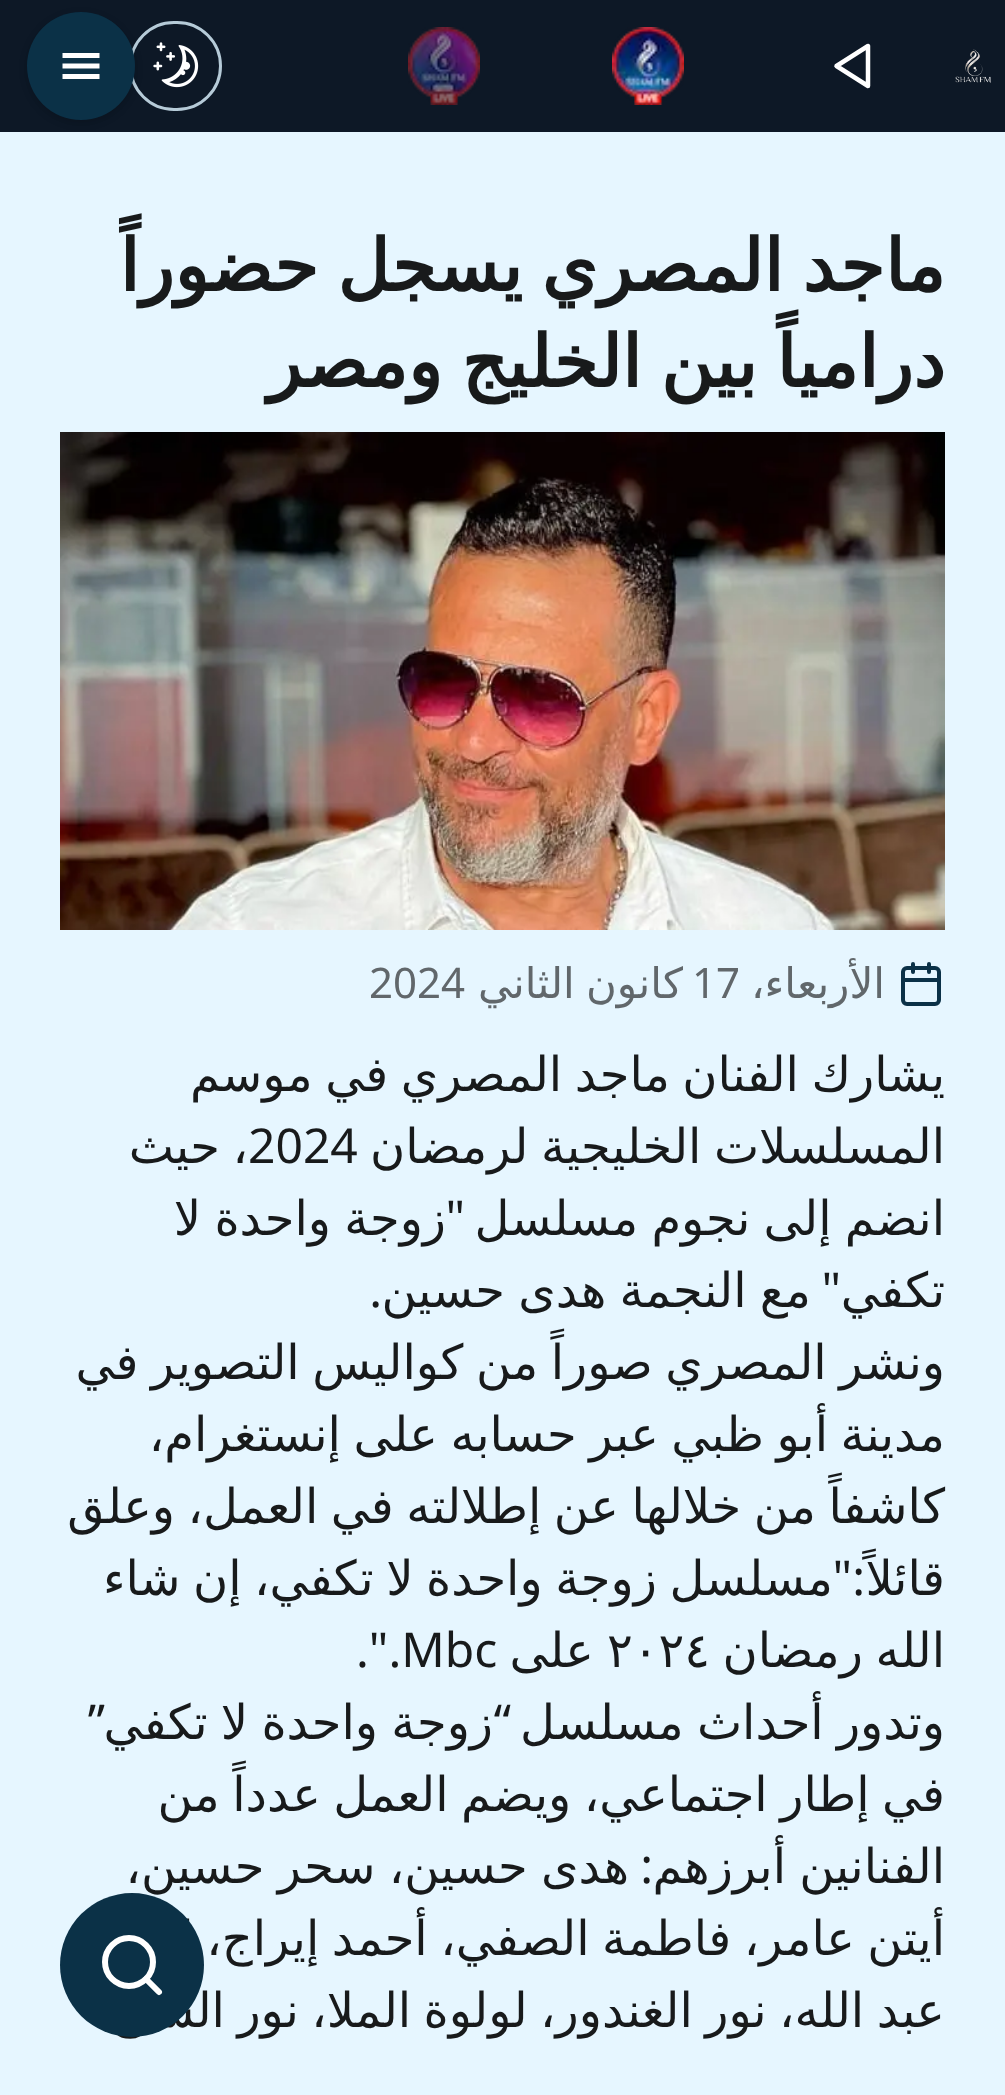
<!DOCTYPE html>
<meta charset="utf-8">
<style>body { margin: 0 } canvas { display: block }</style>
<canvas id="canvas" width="1005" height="2095"></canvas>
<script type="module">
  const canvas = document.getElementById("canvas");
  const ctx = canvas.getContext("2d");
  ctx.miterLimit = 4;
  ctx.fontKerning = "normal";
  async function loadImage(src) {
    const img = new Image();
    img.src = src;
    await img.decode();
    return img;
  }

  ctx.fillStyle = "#e6f6ff";
  ctx.fillRect(0, 0, 1005, 2095);
  ctx.fillStyle = "#0d1826";
  ctx.fillRect(0, 0, 1005, 132);
  ctx.drawImage(await loadImage("img1.png"), 955, 49, 36, 34);
  ctx.beginPath();
  ctx.moveTo(868, 86);
  ctx.lineTo(836.5, 66);
  ctx.lineTo(868, 46);
  ctx.closePath();
  ctx.strokeStyle = "#ffffff";
  ctx.lineWidth = 4.5;
  ctx.lineCap = "round";
  ctx.lineJoin = "round";
  ctx.stroke();
  ctx.drawImage(await loadImage("img2.png"), 612, 27, 72, 78);
  ctx.drawImage(await loadImage("img3.png"), 408, 27, 72, 78);
  ctx.beginPath();
  ctx.roundRect(130.5, 22.5, 90, 87, 43.5);
  ctx.strokeStyle = "#b6cbd8";
  ctx.lineWidth = 3;
  ctx.lineJoin = "miter";
  ctx.stroke();
  ctx.drawImage(await loadImage("img4.png"), 153, 42, 46, 46);
  ctx.fillStyle = "rgba(0, 0, 0, 0.1)";
  ctx.filter = "blur(3px)";
  ctx.beginPath();
  ctx.roundRect(30, 18, 102, 102, 51);
  ctx.fill();
  ctx.filter = "none";
  ctx.filter = "blur(4.5px)";
  ctx.beginPath();
  ctx.roundRect(27, 15, 108, 108, 54);
  ctx.fill();
  ctx.filter = "none";
  ctx.fillStyle = "#0b3147";
  ctx.beginPath();
  ctx.arc(81, 66, 54, 0, Math.PI * 2);
  ctx.fill();
  ctx.fillStyle = "#ffffff";
  ctx.beginPath();
  ctx.moveTo(62.5, 53);
  ctx.lineTo(62.5, 58);
  ctx.lineTo(99.5, 58);
  ctx.lineTo(99.5, 53);
  ctx.closePath();
  ctx.moveTo(62.5, 63.5);
  ctx.lineTo(62.5, 68.5);
  ctx.lineTo(99.5, 68.5);
  ctx.lineTo(99.5, 63.5);
  ctx.closePath();
  ctx.moveTo(62.5, 74);
  ctx.lineTo(62.5, 79);
  ctx.lineTo(99.5, 79);
  ctx.lineTo(99.5, 74);
  ctx.closePath();
  ctx.fill();
  ctx.wordSpacing = "-4px";
  ctx.direction = "rtl";
  ctx.font = "bold 72px DejaVu Sans";
  ctx.fillStyle = "#181a1b";
  ctx.fillText("ماجد المصري يسجل حضوراً", 945, 291);
  ctx.fillText("درامياً بين الخليج ومصر", 945, 387);
  ctx.drawImage(await loadImage("img5.png"), 60, 432, 885, 498);
  ctx.beginPath();
  ctx.moveTo(913, 964);
  ctx.lineTo(913, 972);
  ctx.moveTo(929, 964);
  ctx.lineTo(929, 972);
  ctx.strokeStyle = "#0b3147";
  ctx.lineWidth = 4;
  ctx.lineJoin = "round";
  ctx.stroke();
  ctx.beginPath();
  ctx.roundRect(903, 968, 36, 36, 4);
  ctx.lineJoin = "miter";
  ctx.stroke();
  ctx.beginPath();
  ctx.moveTo(903, 980);
  ctx.lineTo(939, 980);
  ctx.lineJoin = "round";
  ctx.stroke();
  ctx.wordSpacing = "0px";
  ctx.font = "42px DejaVu Sans";
  ctx.fillStyle = "#61676b";
  ctx.fillText("الأربعاء،", 885, 998);
  ctx.direction = "ltr";
  ctx.font = "42px Noto Sans";
  ctx.fillText("17", 692, 998);
  ctx.wordSpacing = "-2px";
  ctx.direction = "rtl";
  ctx.font = "42px DejaVu Sans";
  ctx.fillText("كانون الثاني", 683, 998);
  ctx.wordSpacing = "0px";
  ctx.direction = "ltr";
  ctx.font = "42px Noto Sans";
  ctx.fillText("2024", 369, 998);
  ctx.wordSpacing = "-2.75px";
  ctx.direction = "rtl";
  ctx.font = "48px DejaVu Sans";
  ctx.fillStyle = "#181a1b";
  ctx.fillText("يشارك الفنان ماجد المصري في موسم", 945, 1091);
  ctx.fillText("المسلسلات الخليجية لرمضان", 945, 1163);
  ctx.wordSpacing = "0px";
  ctx.direction = "ltr";
  ctx.font = "48px Noto Sans";
  ctx.fillText("2024", 248, 1163);
  ctx.wordSpacing = "-2.75px";
  ctx.direction = "rtl";
  ctx.font = "48px DejaVu Sans";
  ctx.fillText("، حيث", 248, 1163);
  ctx.wordSpacing = "-2px";
  ctx.fillText("انضم إلى نجوم مسلسل", 945, 1235);
  ctx.wordSpacing = "0px";
  ctx.font = "48px Noto Sans";
  ctx.fillText("\"", 465, 1235);
  ctx.wordSpacing = "-2px";
  ctx.font = "48px DejaVu Sans";
  ctx.fillText("زوجة واحدة لا", 446, 1235);
  ctx.wordSpacing = "0px";
  ctx.fillText("تكفي", 945, 1307);
  ctx.font = "48px Noto Sans";
  ctx.fillText("\"", 841, 1307);
  ctx.wordSpacing = "-2px";
  ctx.font = "48px DejaVu Sans";
  ctx.fillText("مع النجمة هدى حسين", 811, 1307);
  ctx.wordSpacing = "0px";
  ctx.font = "48px Noto Sans";
  ctx.fillText(".", 382, 1307);
  ctx.wordSpacing = "-2.75px";
  ctx.font = "48px DejaVu Sans";
  ctx.fillText("ونشر المصري صوراً من كواليس التصوير في", 945, 1379);
  ctx.fillText("مدينة أبو ظبي عبر حسابه على إنستغرام،", 945, 1451);
  ctx.fillText("كاشفاً من خلالها عن إطلالته في العمل، وعلق", 945, 1523);
  ctx.fillText("مسلسل زوجة واحدة لا تكفي، إن شاء", 833, 1595);
  ctx.wordSpacing = "0px";
  ctx.font = "48px Noto Sans";
  ctx.fillText(":\"", 865, 1595);
  ctx.font = "48px DejaVu Sans";
  ctx.fillText("قائلاً", 945, 1595);
  ctx.wordSpacing = "-2.75px";
  ctx.fillText("الله رمضان", 945, 1667);
  ctx.wordSpacing = "0px";
  ctx.direction = "ltr";
  ctx.fillText("٢٠٢٤", 607, 1667);
  ctx.direction = "rtl";
  ctx.fillText("على", 594, 1667);
  ctx.direction = "ltr";
  ctx.font = "48px Noto Sans";
  ctx.fillText(".\".Mbc", 356, 1667);
  ctx.wordSpacing = "-2px";
  ctx.direction = "rtl";
  ctx.font = "48px DejaVu Sans";
  ctx.fillText("وتدور أحداث مسلسل", 945, 1739);
  ctx.fillText("زوجة واحدة لا تكفي", 493, 1739);
  ctx.wordSpacing = "0px";
  ctx.font = "48px Noto Sans";
  ctx.fillText("“", 511, 1739);
  ctx.fillText("”", 105, 1739);
  ctx.wordSpacing = "-2.75px";
  ctx.font = "48px DejaVu Sans";
  ctx.fillText("في إطار اجتماعي، ويضم العمل عدداً من", 945, 1811);
  ctx.wordSpacing = "-2px";
  ctx.fillText("الفنانين أبرزهم", 945, 1883);
  ctx.wordSpacing = "0px";
  ctx.font = "48px Noto Sans";
  ctx.fillText(":", 653, 1883);
  ctx.wordSpacing = "-2px";
  ctx.font = "48px DejaVu Sans";
  ctx.fillText("هدى حسين، سحر حسين،", 629, 1883);
  ctx.wordSpacing = "-2.75px";
  ctx.fillText("أيتن عامر، فاطمة الصفي، أحمد إيراج، ليلى", 945, 1955);
  ctx.fillText("عبد الله، نور الغندور، لولوة الملا، نور الشيخ،", 945, 2027);
  ctx.fillStyle = "#0b3147";
  ctx.beginPath();
  ctx.arc(132, 1965, 72, 0, Math.PI * 2);
  ctx.fill();
  ctx.beginPath();
  ctx.arc(129, 1962, 24, 0, Math.PI * 2);
  ctx.strokeStyle = "#ffffff";
  ctx.lineWidth = 6;
  ctx.stroke();
  ctx.beginPath();
  ctx.moveTo(159, 1992);
  ctx.lineTo(146, 1979);
  ctx.stroke();
</script>
